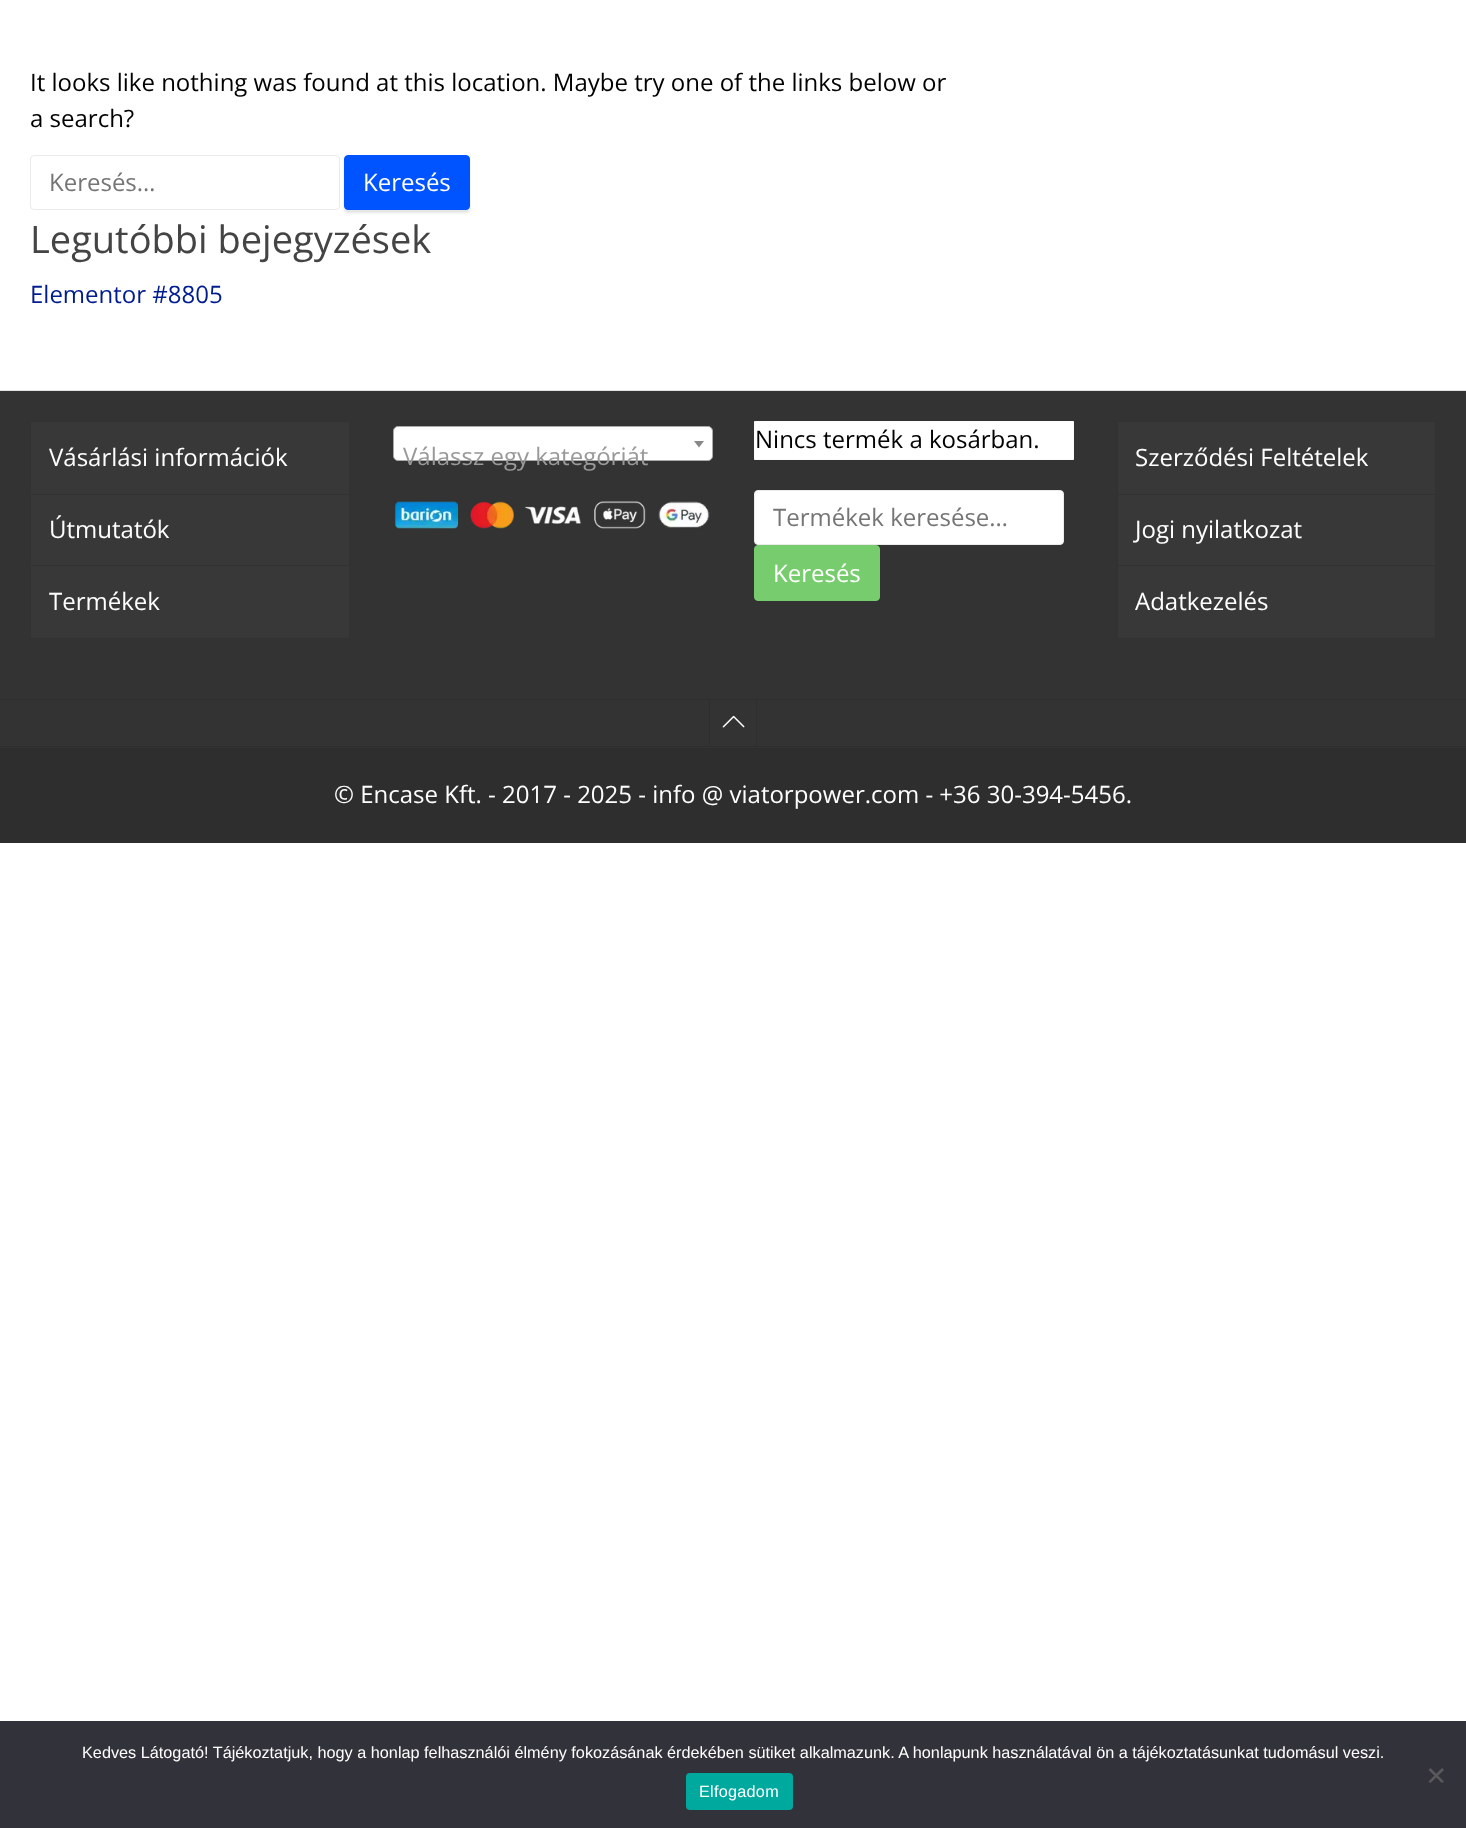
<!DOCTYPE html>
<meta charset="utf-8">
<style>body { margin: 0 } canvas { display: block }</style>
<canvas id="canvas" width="1466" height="1828"></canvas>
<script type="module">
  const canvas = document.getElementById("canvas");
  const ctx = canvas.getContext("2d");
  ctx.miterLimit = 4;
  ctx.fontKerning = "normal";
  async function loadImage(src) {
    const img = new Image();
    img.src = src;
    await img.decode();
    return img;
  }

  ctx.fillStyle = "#ffffff";
  ctx.fillRect(0, 0, 1466, 1828);
  ctx.font = "24px Open Sans";
  ctx.fillStyle = "#000000";
  ctx.fillText("It looks like nothing was found at this location. Maybe try one of the links below or", 30, 91);
  ctx.fillText("a search?", 30, 127);
  ctx.beginPath();
  ctx.roundRect(30.5, 155.5, 309, 54, 3.5);
  ctx.strokeStyle = "#ebebeb";
  ctx.stroke();
  ctx.fillStyle = "#757575";
  ctx.fillText("Keresés…", 49, 191);
  ctx.fillStyle = "rgba(0, 0, 0, 0.1)";
  ctx.filter = "blur(1px)";
  ctx.beginPath();
  ctx.roundRect(344, 158, 126, 55, 4);
  ctx.fill();
  ctx.filter = "none";
  ctx.fillStyle = "#0054ff";
  ctx.beginPath();
  ctx.roundRect(344.5, 155.5, 125, 54, 3.5);
  ctx.fill();
  ctx.strokeStyle = "#0054ff";
  ctx.stroke();
  ctx.fillStyle = "#ffffff";
  ctx.fillText("Keresés", 363, 191);
  ctx.font = "38px Open Sans";
  ctx.fillStyle = "#444444";
  ctx.fillText("Legutóbbi bejegyzések", 30, 253);
  ctx.font = "24px Open Sans";
  ctx.fillStyle = "#001c8e";
  ctx.fillText("Elementor #8805", 30, 303);
  ctx.fillStyle = "#333333";
  ctx.fillRect(0, 391, 1466, 357);
  ctx.fillStyle = "#e3e3e3";
  ctx.fillRect(0, 390, 1466, 1);
  ctx.fillStyle = "#383838";
  ctx.fillRect(30, 421, 320, 218);
  ctx.fillStyle = "#323232";
  ctx.beginPath();
  ctx.moveTo(30, 421);
  ctx.lineTo(350, 421);
  ctx.lineTo(349, 422);
  ctx.lineTo(31, 422);
  ctx.closePath();
  ctx.fill();
  ctx.fillStyle = "rgba(0, 0, 0, 0.1)";
  ctx.beginPath();
  ctx.moveTo(350, 421);
  ctx.lineTo(350, 639);
  ctx.lineTo(349, 639);
  ctx.lineTo(349, 422);
  ctx.closePath();
  ctx.fill();
  ctx.beginPath();
  ctx.moveTo(30, 639);
  ctx.lineTo(30, 421);
  ctx.lineTo(31, 422);
  ctx.lineTo(31, 639);
  ctx.closePath();
  ctx.fill();
  ctx.fillStyle = "#323232";
  ctx.fillRect(31, 494, 318, 1);
  ctx.fillStyle = "#ffffff";
  ctx.fillText("Vásárlási információk", 49, 466);
  ctx.fillStyle = "#323232";
  ctx.fillRect(31, 565, 318, 1);
  ctx.fillStyle = "#ffffff";
  ctx.fillText("Útmutatók", 49, 538);
  ctx.fillStyle = "#323232";
  ctx.fillRect(31, 638, 318, 1);
  ctx.fillStyle = "#ffffff";
  ctx.fillText("Termékek", 49, 610);
  ctx.beginPath();
  ctx.roundRect(393.5, 426.5, 319, 34, 4.5);
  ctx.fill();
  ctx.strokeStyle = "#aaaaaa";
  ctx.stroke();
  ctx.fillStyle = "#888888";
  ctx.beginPath();
  ctx.moveTo(694, 441);
  ctx.lineTo(704, 441);
  ctx.lineTo(699, 447.5);
  ctx.closePath();
  ctx.fill();
  ctx.fillStyle = "#999999";
  ctx.fillText("Válassz egy kategóriát", 403, 465);
  ctx.drawImage(await loadImage("img1.png"), 395, 501, 315, 28);
  ctx.fillStyle = "#ffffff";
  ctx.beginPath();
  ctx.rect(754.5, 421.5, 319, 38);
  ctx.fill();
  ctx.strokeStyle = "#fafafa";
  ctx.stroke();
  ctx.fillStyle = "#000000";
  ctx.fillText("Nincs termék a kosárban.", 755, 448);
  ctx.fillStyle = "#ffffff";
  ctx.beginPath();
  ctx.roundRect(754.5, 490.5, 309, 54, 3.5);
  ctx.fill();
  ctx.strokeStyle = "#ebebeb";
  ctx.stroke();
  ctx.fillStyle = "#757575";
  ctx.fillText("Termékek keresése…", 773, 526);
  ctx.fillStyle = "#77cc6d";
  ctx.beginPath();
  ctx.roundRect(754.5, 545.5, 125, 55, 3.5);
  ctx.fill();
  ctx.strokeStyle = "#77cc6d";
  ctx.stroke();
  ctx.fillStyle = "#ffffff";
  ctx.fillText("Keresés", 773, 582);
  ctx.fillStyle = "#383838";
  ctx.fillRect(1116, 421, 320, 218);
  ctx.fillStyle = "#323232";
  ctx.beginPath();
  ctx.moveTo(1116, 421);
  ctx.lineTo(1436, 421);
  ctx.lineTo(1435, 422);
  ctx.lineTo(1118, 422);
  ctx.closePath();
  ctx.fill();
  ctx.fillStyle = "rgba(0, 0, 0, 0.1)";
  ctx.beginPath();
  ctx.moveTo(1436, 421);
  ctx.lineTo(1436, 639);
  ctx.lineTo(1435, 639);
  ctx.lineTo(1435, 422);
  ctx.closePath();
  ctx.fill();
  ctx.fillStyle = "#323232";
  ctx.beginPath();
  ctx.moveTo(1116, 639);
  ctx.lineTo(1116, 421);
  ctx.lineTo(1118, 422);
  ctx.lineTo(1118, 639);
  ctx.closePath();
  ctx.fill();
  ctx.fillRect(1118, 494, 317, 1);
  ctx.fillStyle = "#ffffff";
  ctx.fillText("Szerződési Feltételek", 1135, 466);
  ctx.fillStyle = "#323232";
  ctx.fillRect(1118, 565, 317, 1);
  ctx.fillStyle = "#ffffff";
  ctx.fillText("Jogi nyilatkozat", 1135, 538);
  ctx.fillStyle = "#323232";
  ctx.fillRect(1118, 638, 317, 1);
  ctx.fillStyle = "#ffffff";
  ctx.fillText("Adatkezelés", 1135, 610);
  ctx.fillStyle = "#2e2e2e";
  ctx.fillRect(0, 699, 1466, 1);
  ctx.fillRect(0, 746, 1466, 1);
  ctx.fillRect(756, 700, 1, 46);
  ctx.fillRect(709, 700, 1, 46);
  ctx.drawImage(await loadImage("img2.png"), 722, 715, 23, 13);
  ctx.fillRect(0, 748, 1466, 95);
  ctx.fillStyle = "#ffffff";
  ctx.fillText("© Encase Kft. - 2017 - 2025 - info @ viatorpower.com - +36 30-394-5456.", 334, 803);
  ctx.fillStyle = "#32323a";
  ctx.fillRect(0, 1721, 1466, 107);
  ctx.font = "16.25px Liberation Sans";
  ctx.fillStyle = "#ffffff";
  ctx.fillText("Kedves Látogató! Tájékoztatjuk, hogy a honlap felhasználói élmény fokozásának érdekében sütiket alkalmazunk. A honlapunk használatával ön a tájékoztatásunkat tudomásul veszi.", 82, 1758);
  ctx.fillStyle = "#59595d";
  ctx.beginPath();
  ctx.moveTo(1442, 1768);
  ctx.lineTo(1444, 1770);
  ctx.lineTo(1430.5, 1783);
  ctx.lineTo(1428.5, 1781.5);
  ctx.closePath();
  ctx.fill();
  ctx.beginPath();
  ctx.moveTo(1428.5, 1770);
  ctx.lineTo(1430.5, 1768);
  ctx.lineTo(1444, 1781.5);
  ctx.lineTo(1442, 1783);
  ctx.closePath();
  ctx.fill();
  ctx.fillStyle = "#00a99d";
  ctx.beginPath();
  ctx.roundRect(686, 1773, 107, 37, 4);
  ctx.fill();
  ctx.letterSpacing = "0.25px";
  ctx.fillStyle = "#ffffff";
  ctx.fillText("Elfogadom", 699, 1797);
</script>
